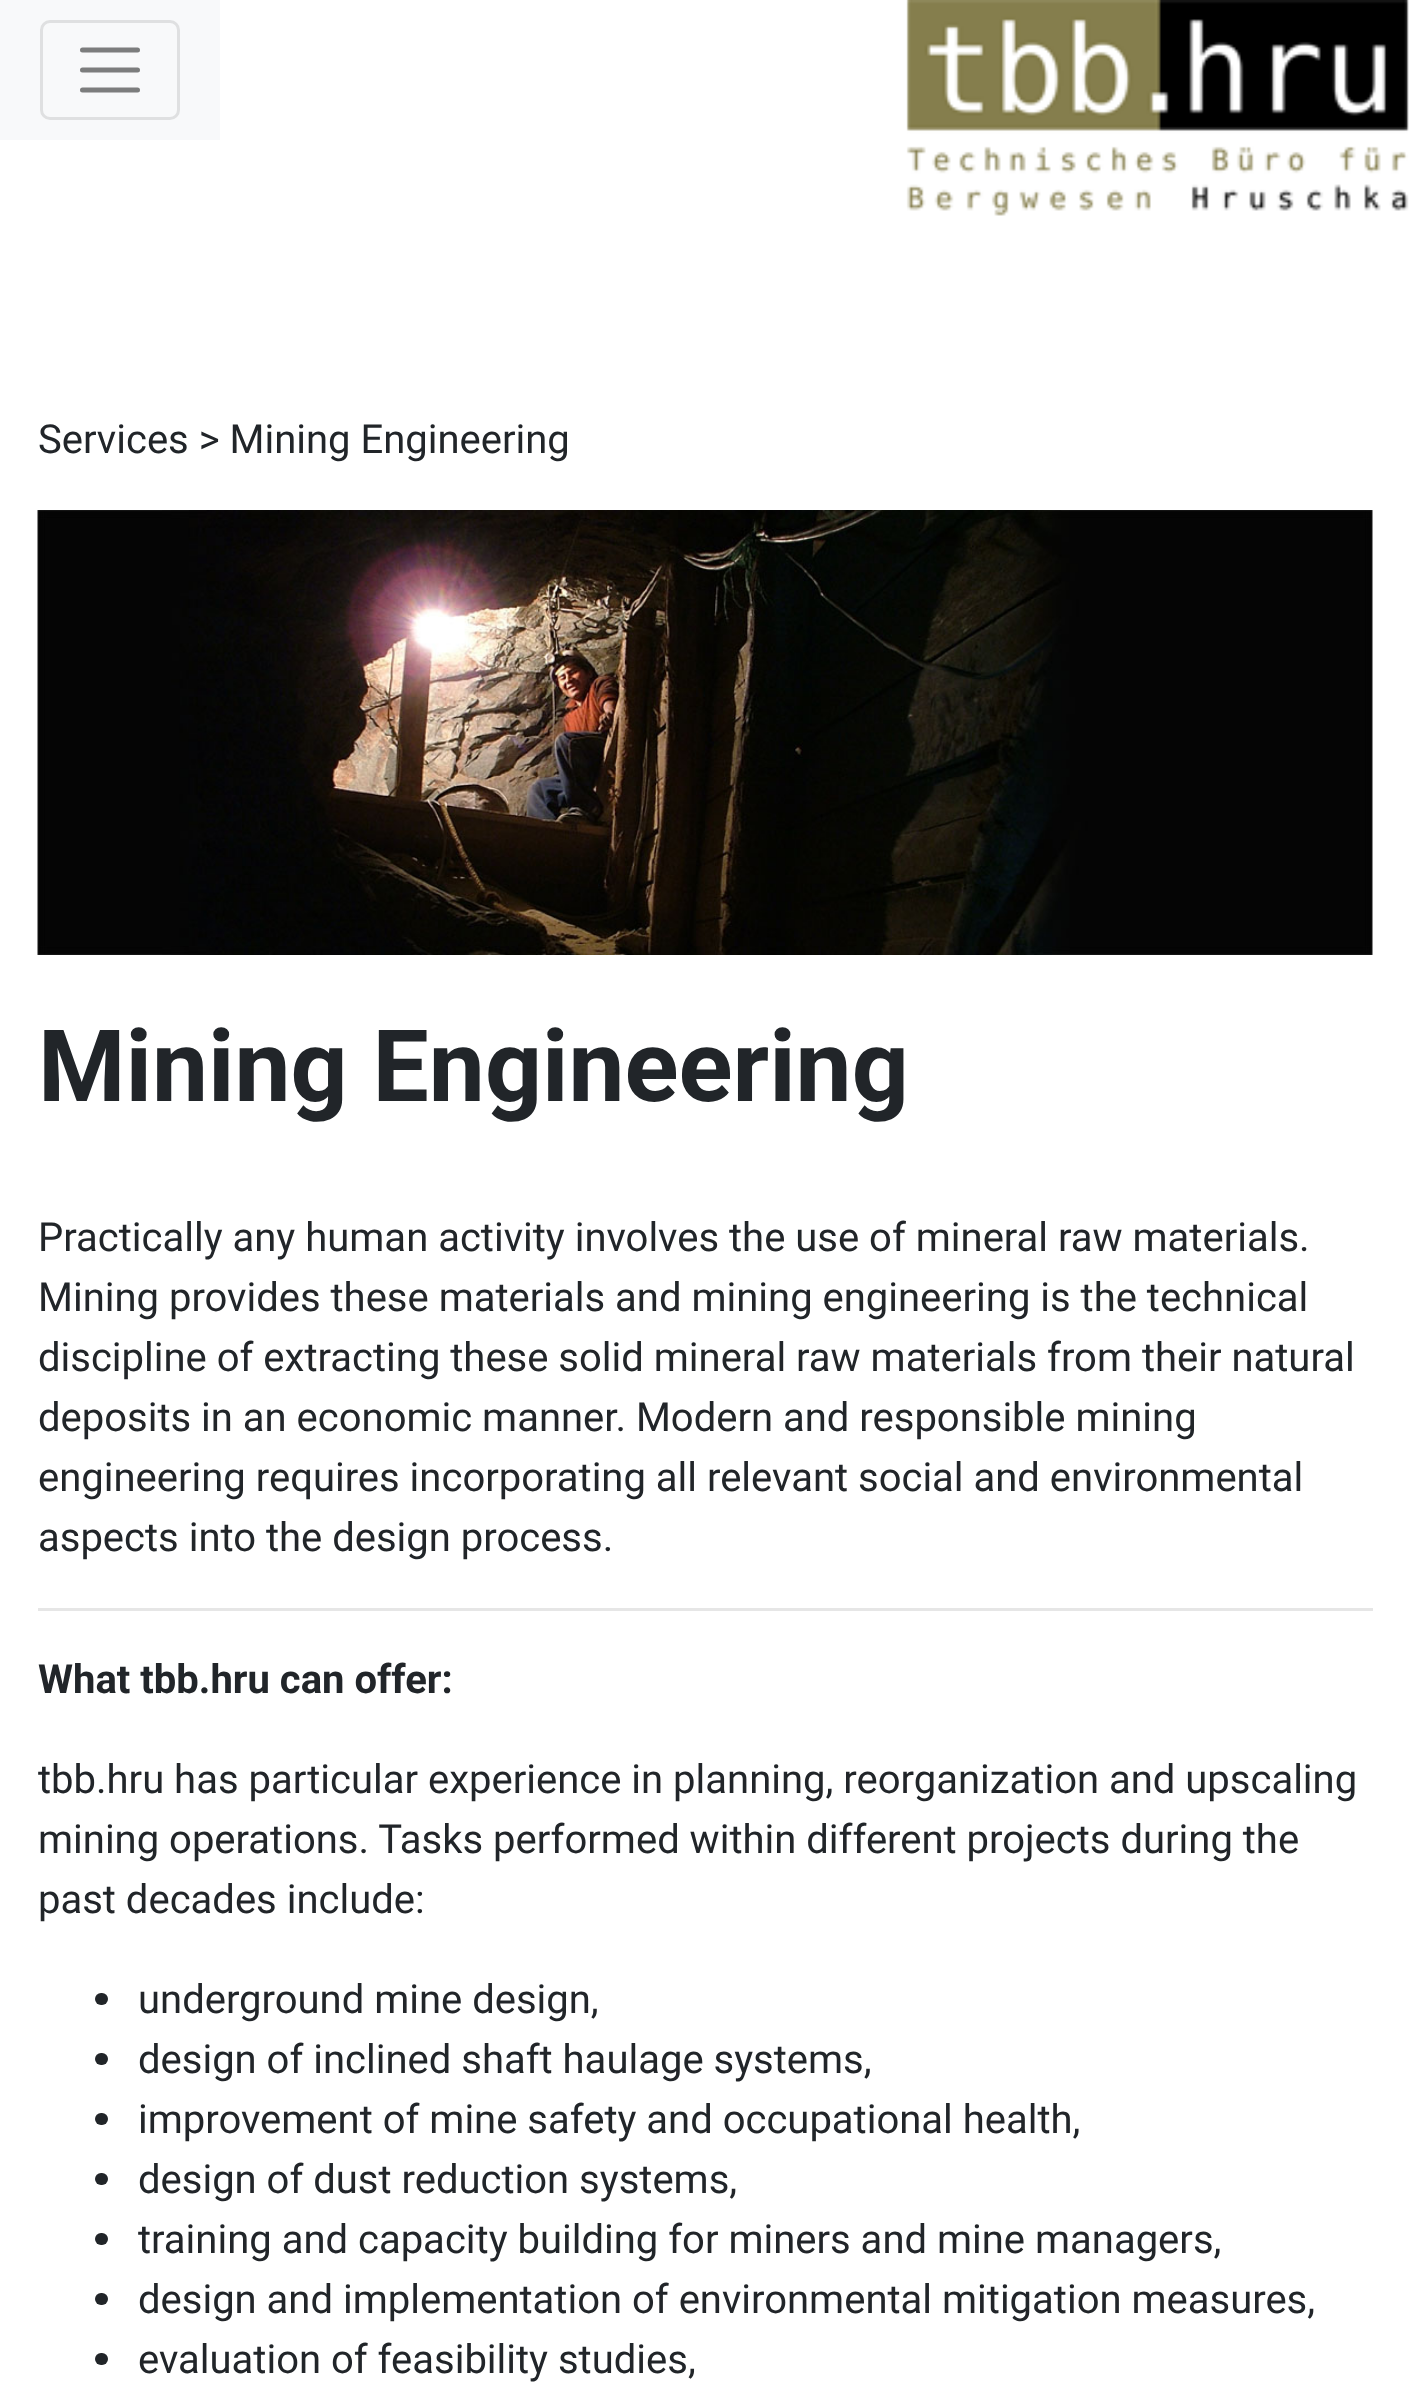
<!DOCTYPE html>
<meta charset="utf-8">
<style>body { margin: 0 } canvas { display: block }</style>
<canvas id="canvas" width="1409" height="2401"></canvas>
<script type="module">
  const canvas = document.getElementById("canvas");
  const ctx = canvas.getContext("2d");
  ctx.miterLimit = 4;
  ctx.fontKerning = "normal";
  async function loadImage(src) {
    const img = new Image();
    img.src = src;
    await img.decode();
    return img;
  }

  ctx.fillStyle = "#ffffff";
  ctx.fillRect(0, 0, 1409, 2401);
  ctx.fillStyle = "#f8f9fa";
  ctx.fillRect(0, 0, 220, 140);
  ctx.beginPath();
  ctx.roundRect(41.5, 21.5, 137, 97, 8.5);
  ctx.strokeStyle = "#dfe0e1";
  ctx.lineWidth = 3;
  ctx.stroke();
  ctx.beginPath();
  ctx.moveTo(82.5, 50);
  ctx.lineTo(137.5, 50);
  ctx.moveTo(82.5, 70);
  ctx.lineTo(137.5, 70);
  ctx.moveTo(82.5, 90);
  ctx.lineTo(137.5, 90);
  ctx.strokeStyle = "#7c7d7d";
  ctx.lineWidth = 5;
  ctx.lineCap = "round";
  ctx.stroke();
  ctx.drawImage(await loadImage("img1.png"), 906, 0, 503, 216);
  ctx.font = "40px Roboto";
  ctx.fillStyle = "#212529";
  ctx.fillText("Services > Mining Engineering", 38, 453);
  ctx.drawImage(await loadImage("img2.png"), 37, 510, 1336, 445);
  ctx.font = "bold 100px Roboto";
  ctx.fillText("Mining Engineering", 38, 1101);
  ctx.font = "40px Roboto";
  ctx.fillText("Practically any human activity involves the use of mineral raw materials.", 38, 1251);
  ctx.fillText("Mining provides these materials and mining engineering is the technical", 38, 1311);
  ctx.fillText("discipline of extracting these solid mineral raw materials from their natural", 38, 1371);
  ctx.fillText("deposits in an economic manner. Modern and responsible mining", 38, 1431);
  ctx.fillText("engineering requires incorporating all relevant social and environmental", 38, 1491);
  ctx.fillText("aspects into the design process.", 38, 1551);
  ctx.fillStyle = "#e6e6e6";
  ctx.fillRect(38, 1608, 1335, 3);
  ctx.font = "bold 40px Roboto";
  ctx.fillStyle = "#212529";
  ctx.fillText("What tbb.hru can offer:", 38, 1693);
  ctx.font = "40px Roboto";
  ctx.fillText("tbb.hru has particular experience in planning, reorganization and upscaling", 38, 1793);
  ctx.fillText("mining operations. Tasks performed within different projects during the", 38, 1853);
  ctx.fillText("past decades include:", 38, 1913);
  ctx.beginPath();
  ctx.roundRect(95, 1993, 13, 12, 6);
  ctx.fill();
  ctx.fillText("underground mine design,", 138, 2013);
  ctx.beginPath();
  ctx.roundRect(95, 2053, 13, 12, 6);
  ctx.fill();
  ctx.fillText("design of inclined shaft haulage systems,", 138, 2073);
  ctx.beginPath();
  ctx.roundRect(95, 2113, 13, 12, 6);
  ctx.fill();
  ctx.fillText("improvement of mine safety and occupational health,", 138, 2133);
  ctx.beginPath();
  ctx.roundRect(95, 2173, 13, 12, 6);
  ctx.fill();
  ctx.fillText("design of dust reduction systems,", 138, 2193);
  ctx.beginPath();
  ctx.roundRect(95, 2233, 13, 12, 6);
  ctx.fill();
  ctx.fillText("training and capacity building for miners and mine managers,", 138, 2253);
  ctx.beginPath();
  ctx.roundRect(95, 2293, 13, 12, 6);
  ctx.fill();
  ctx.fillText("design and implementation of environmental mitigation measures,", 138, 2313);
  ctx.beginPath();
  ctx.roundRect(95, 2353, 13, 12, 6);
  ctx.fill();
  ctx.fillText("evaluation of feasibility studies,", 138, 2373);
</script>
